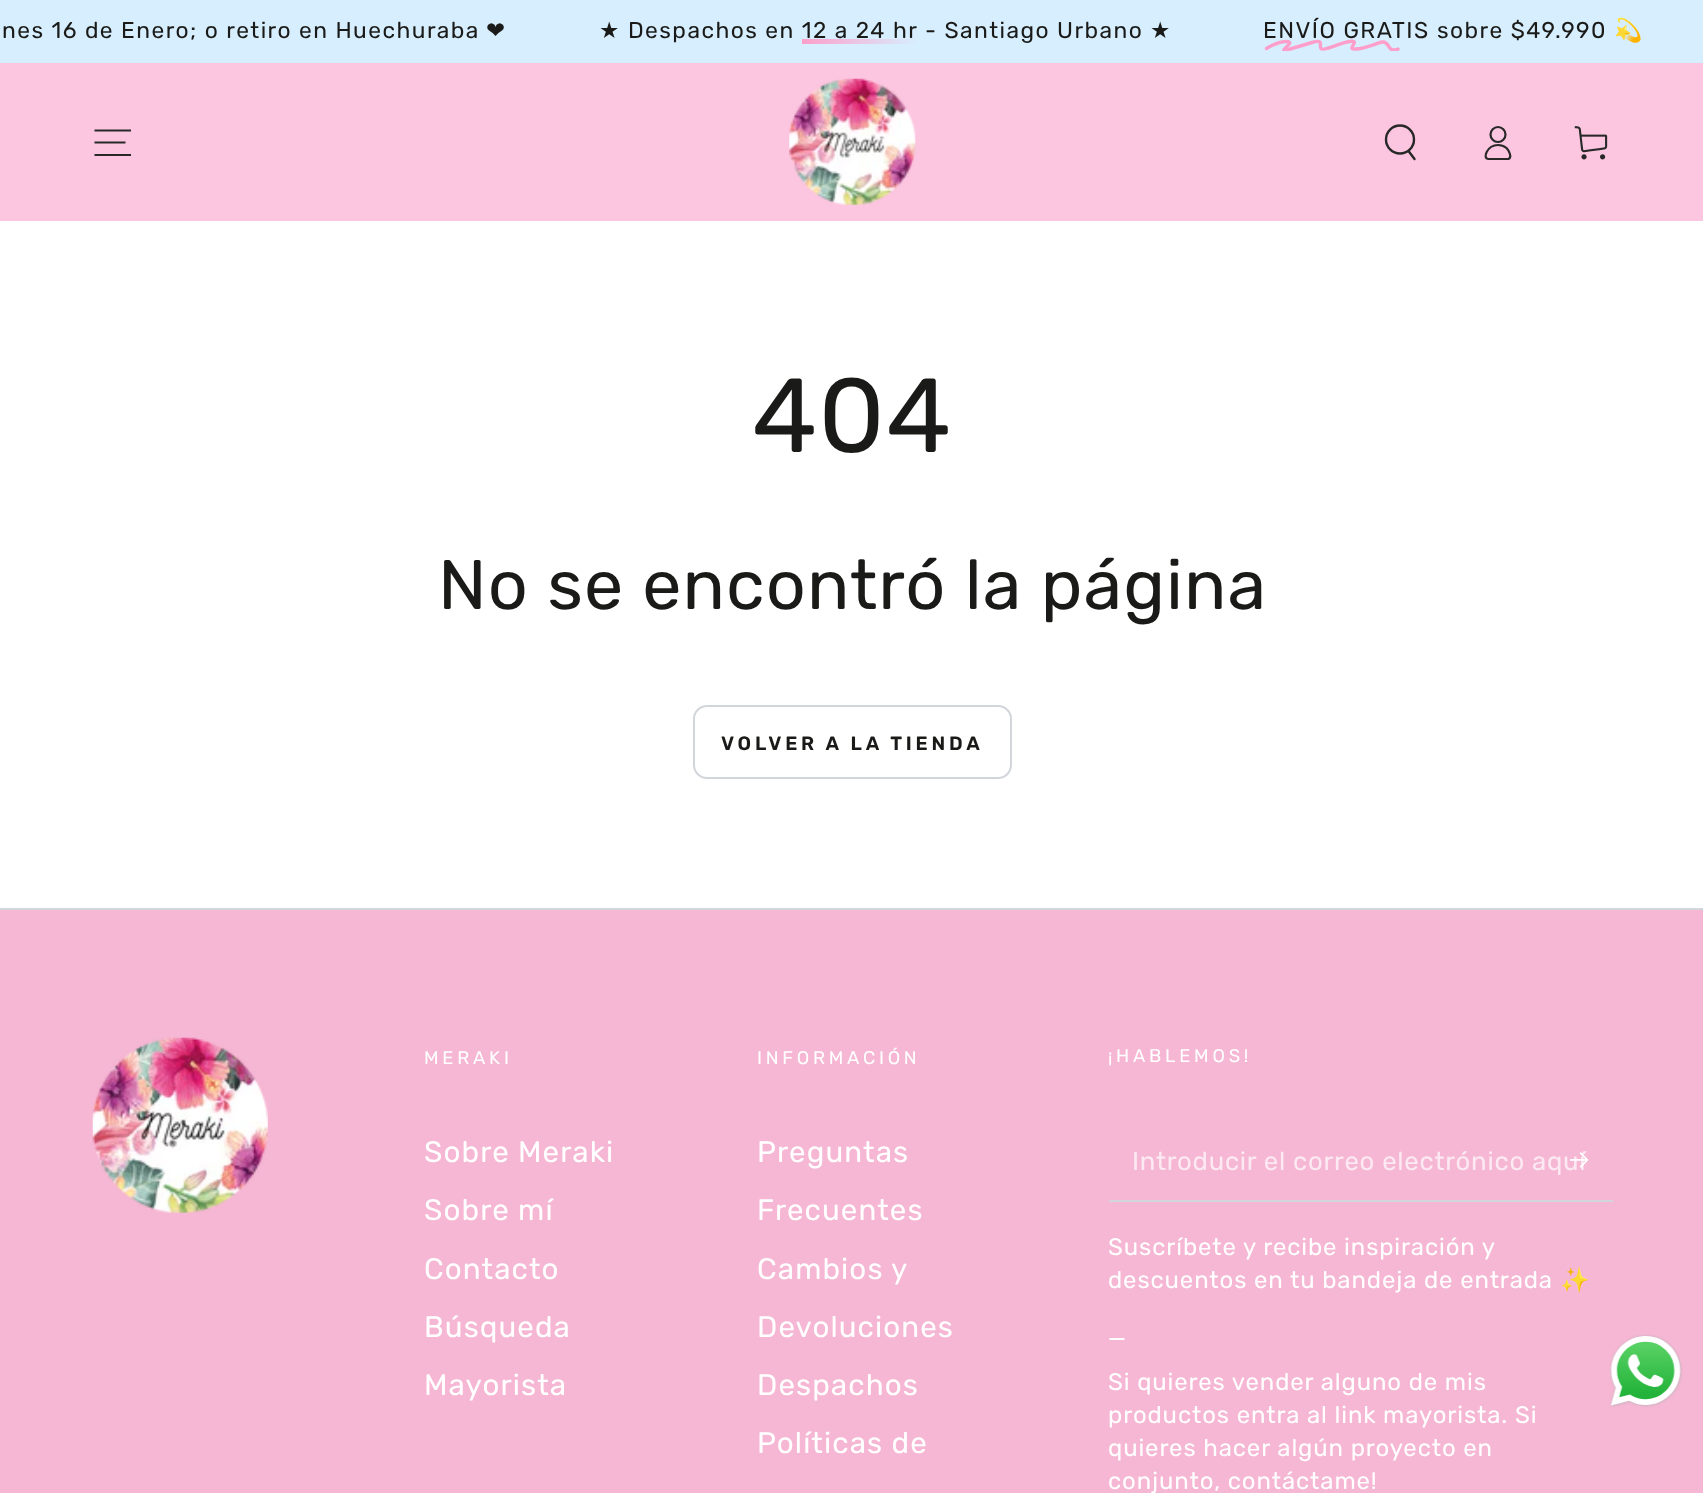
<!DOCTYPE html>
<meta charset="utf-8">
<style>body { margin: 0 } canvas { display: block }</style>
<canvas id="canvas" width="1703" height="1493"></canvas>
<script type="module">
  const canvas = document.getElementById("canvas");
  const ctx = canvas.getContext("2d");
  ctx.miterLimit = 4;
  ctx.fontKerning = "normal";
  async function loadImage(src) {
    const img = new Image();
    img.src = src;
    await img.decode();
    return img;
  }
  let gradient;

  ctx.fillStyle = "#ffffff";
  ctx.fillRect(0, 0, 1703, 1493);
  ctx.fillStyle = "#d7eeff";
  ctx.fillRect(0, 0, 1703, 63);
  ctx.letterSpacing = "1.45px";
  ctx.font = "300 22.75px Rubik";
  ctx.fillStyle = "#1a1b18";
  ctx.fillText("nes 16 de Enero; o retiro en Huechuraba", 2, 38);
  ctx.font = "22.75px DejaVu Sans";
  ctx.fillText("❤", 486, 38);
  ctx.fillText("★", 599, 38);
  ctx.font = "300 22.75px Rubik";
  ctx.fillText("Despachos en 12 a 24 hr", 628, 38);
  ctx.fillText("- Santiago Urbano", 925, 38);
  ctx.font = "22.75px DejaVu Sans";
  ctx.fillText("★", 1150, 38);
  gradient = ctx.createLinearGradient(802, 41, 917, 41);
  gradient.addColorStop(0, "#fd9fca");
  gradient.addColorStop(1, "#d7eeff");
  ctx.fillStyle = gradient;
  ctx.fillRect(802, 39, 115, 5);
  ctx.font = "300 22.75px Rubik";
  ctx.fillStyle = "#1a1b18";
  ctx.fillText("ENVÍO GRATIS", 1263, 38);
  ctx.save();
  ctx.beginPath();
  ctx.rect(1264, 35, 166, 16);
  ctx.clip();
  ctx.beginPath();
  ctx.moveTo(1266.5, 48.5);
  ctx.bezierCurveTo(1266.5, 48.5, 1277, 41.5, 1286.5, 41.5);
  ctx.bezierCurveTo(1297.5, 41.5, 1276, 52.5, 1287, 50);
  ctx.lineTo(1312, 42.5);
  ctx.bezierCurveTo(1325, 39, 1318.5, 45, 1321, 48.5);
  ctx.bezierCurveTo(1323, 51.5, 1339.5, 43, 1349.5, 41.5);
  ctx.bezierCurveTo(1362.5, 39.5, 1344.5, 50, 1355.5, 49);
  ctx.bezierCurveTo(1367, 48.5, 1376, 43, 1382.5, 42);
  ctx.bezierCurveTo(1390, 41, 1386.5, 52.5, 1397.5, 49.5);
  ctx.lineTo(1398, 49);
  ctx.strokeStyle = "#fd9fca";
  ctx.lineWidth = 3.4;
  ctx.lineCap = "round";
  ctx.stroke();
  ctx.restore();
  ctx.fillText("sobre $49.990", 1437, 38);
  ctx.font = "22.75px Noto Color Emoji";
  ctx.fillText("💫", 1614, 38);
  ctx.fillStyle = "#fcc6e0";
  ctx.fillRect(0, 63, 1703, 158);
  ctx.beginPath();
  ctx.moveTo(94.5, 155);
  ctx.lineTo(131, 155);
  ctx.moveTo(94.5, 142.5);
  ctx.lineTo(125.5, 142.5);
  ctx.moveTo(94.5, 130.5);
  ctx.lineTo(131, 130.5);
  ctx.strokeStyle = "#282828";
  ctx.lineWidth = 2.1;
  ctx.stroke();
  ctx.drawImage(await loadImage("img1.png"), 789, 78, 127, 127);
  ctx.beginPath();
  ctx.arc(1400, 139.5, 14, 0, Math.PI * 2);
  ctx.lineWidth = 2.4;
  ctx.stroke();
  ctx.beginPath();
  ctx.moveTo(1408.5, 151);
  ctx.lineTo(1414.5, 159);
  ctx.lineCap = "round";
  ctx.stroke();
  ctx.beginPath();
  ctx.moveTo(1498, 145);
  ctx.bezierCurveTo(1487, 145, 1482, 159, 1488.5, 159);
  ctx.lineTo(1508.5, 159);
  ctx.bezierCurveTo(1512.5, 157, 1508.5, 150, 1506.5, 148);
  ctx.bezierCurveTo(1504, 146, 1501, 145, 1498, 145);
  ctx.closePath();
  ctx.lineWidth = 2.2;
  ctx.lineCap = "butt";
  ctx.stroke();
  ctx.beginPath();
  ctx.arc(1498, 134.5, 7.5, 0, Math.PI * 2);
  ctx.stroke();
  ctx.drawImage(await loadImage("img2.png"), 1574, 126, 34, 34);
  ctx.letterSpacing = "1.05px";
  ctx.font = "300 105px Rubik";
  ctx.fillStyle = "#1a1b18";
  ctx.fillText("404", 752, 452);
  ctx.font = "300 70px Rubik";
  ctx.fillText("No se encontró la página", 438, 609);
  ctx.beginPath();
  ctx.roundRect(694, 706, 317, 72, 13);
  ctx.strokeStyle = "#d2d5d9";
  ctx.lineWidth = 2;
  ctx.stroke();
  ctx.letterSpacing = "3.8px";
  ctx.font = "600 19.25px Rubik";
  ctx.fillText("VOLVER A LA TIENDA", 721, 750);
  ctx.fillStyle = "#f6b7d4";
  ctx.fillRect(0, 910, 1703, 583);
  ctx.fillStyle = "#d2d5d9";
  ctx.fillRect(0, 908, 1703, 2);
  ctx.drawImage(await loadImage("img3.png"), 92, 1037, 176, 176);
  ctx.letterSpacing = "3.75px";
  ctx.font = "300 18.4px Rubik";
  ctx.fillStyle = "#ffffff";
  ctx.fillText("MERAKI", 424, 1064);
  ctx.letterSpacing = "1.1px";
  ctx.font = "300 29.5px Rubik";
  ctx.fillText("Sobre Meraki", 424, 1162);
  ctx.fillText("Sobre mí", 424, 1220);
  ctx.fillText("Contacto", 424, 1279);
  ctx.fillText("Búsqueda", 424, 1337);
  ctx.fillText("Mayorista", 424, 1395);
  ctx.letterSpacing = "3.75px";
  ctx.font = "300 18.4px Rubik";
  ctx.fillText("INFORMACIÓN", 757, 1064);
  ctx.letterSpacing = "1.1px";
  ctx.font = "300 29.5px Rubik";
  ctx.fillText("Preguntas", 757, 1162);
  ctx.fillText("Frecuentes", 757, 1220);
  ctx.fillText("Cambios y", 757, 1279);
  ctx.fillText("Devoluciones", 757, 1337);
  ctx.fillText("Despachos", 757, 1395);
  ctx.fillText("Políticas de", 757, 1453);
  ctx.letterSpacing = "3.75px";
  ctx.font = "300 18.4px Rubik";
  ctx.fillText("¡HABLEMOS!", 1108, 1062);
  ctx.fillStyle = "#d2d5d9";
  ctx.beginPath();
  ctx.moveTo(1614, 1202);
  ctx.lineTo(1108, 1202);
  ctx.lineTo(1110, 1200);
  ctx.lineTo(1612, 1200);
  ctx.closePath();
  ctx.fill();
  ctx.letterSpacing = "0.75px";
  ctx.font = "300 25.75px Rubik";
  ctx.fillStyle = "#fce9f2";
  ctx.fillText("Introducir el correo electrónico aquí", 1132, 1170);
  ctx.drawImage(await loadImage("img4.png"), 1570, 1152, 19, 16);
  ctx.letterSpacing = "0.9px";
  ctx.font = "300 23.9px Rubik";
  ctx.fillStyle = "#ffffff";
  ctx.fillText("Suscríbete y recibe inspiración y", 1108, 1255);
  ctx.fillText("descuentos en tu bandeja de entrada", 1108, 1288);
  ctx.font = "23.9px Noto Color Emoji";
  ctx.fillText("✨", 1560, 1288);
  ctx.font = "300 23.9px Rubik";
  ctx.fillText("_", 1108, 1339);
  ctx.fillText("Si quieres vender alguno de mis", 1108, 1390);
  ctx.fillText("productos entra al link mayorista. Si", 1108, 1423);
  ctx.fillText("quieres hacer algún proyecto en", 1108, 1456);
  ctx.fillText("conjunto, contáctame!", 1108, 1489);
  ctx.drawImage(await loadImage("img5.png"), 1609, 1334, 74, 74);
</script>
